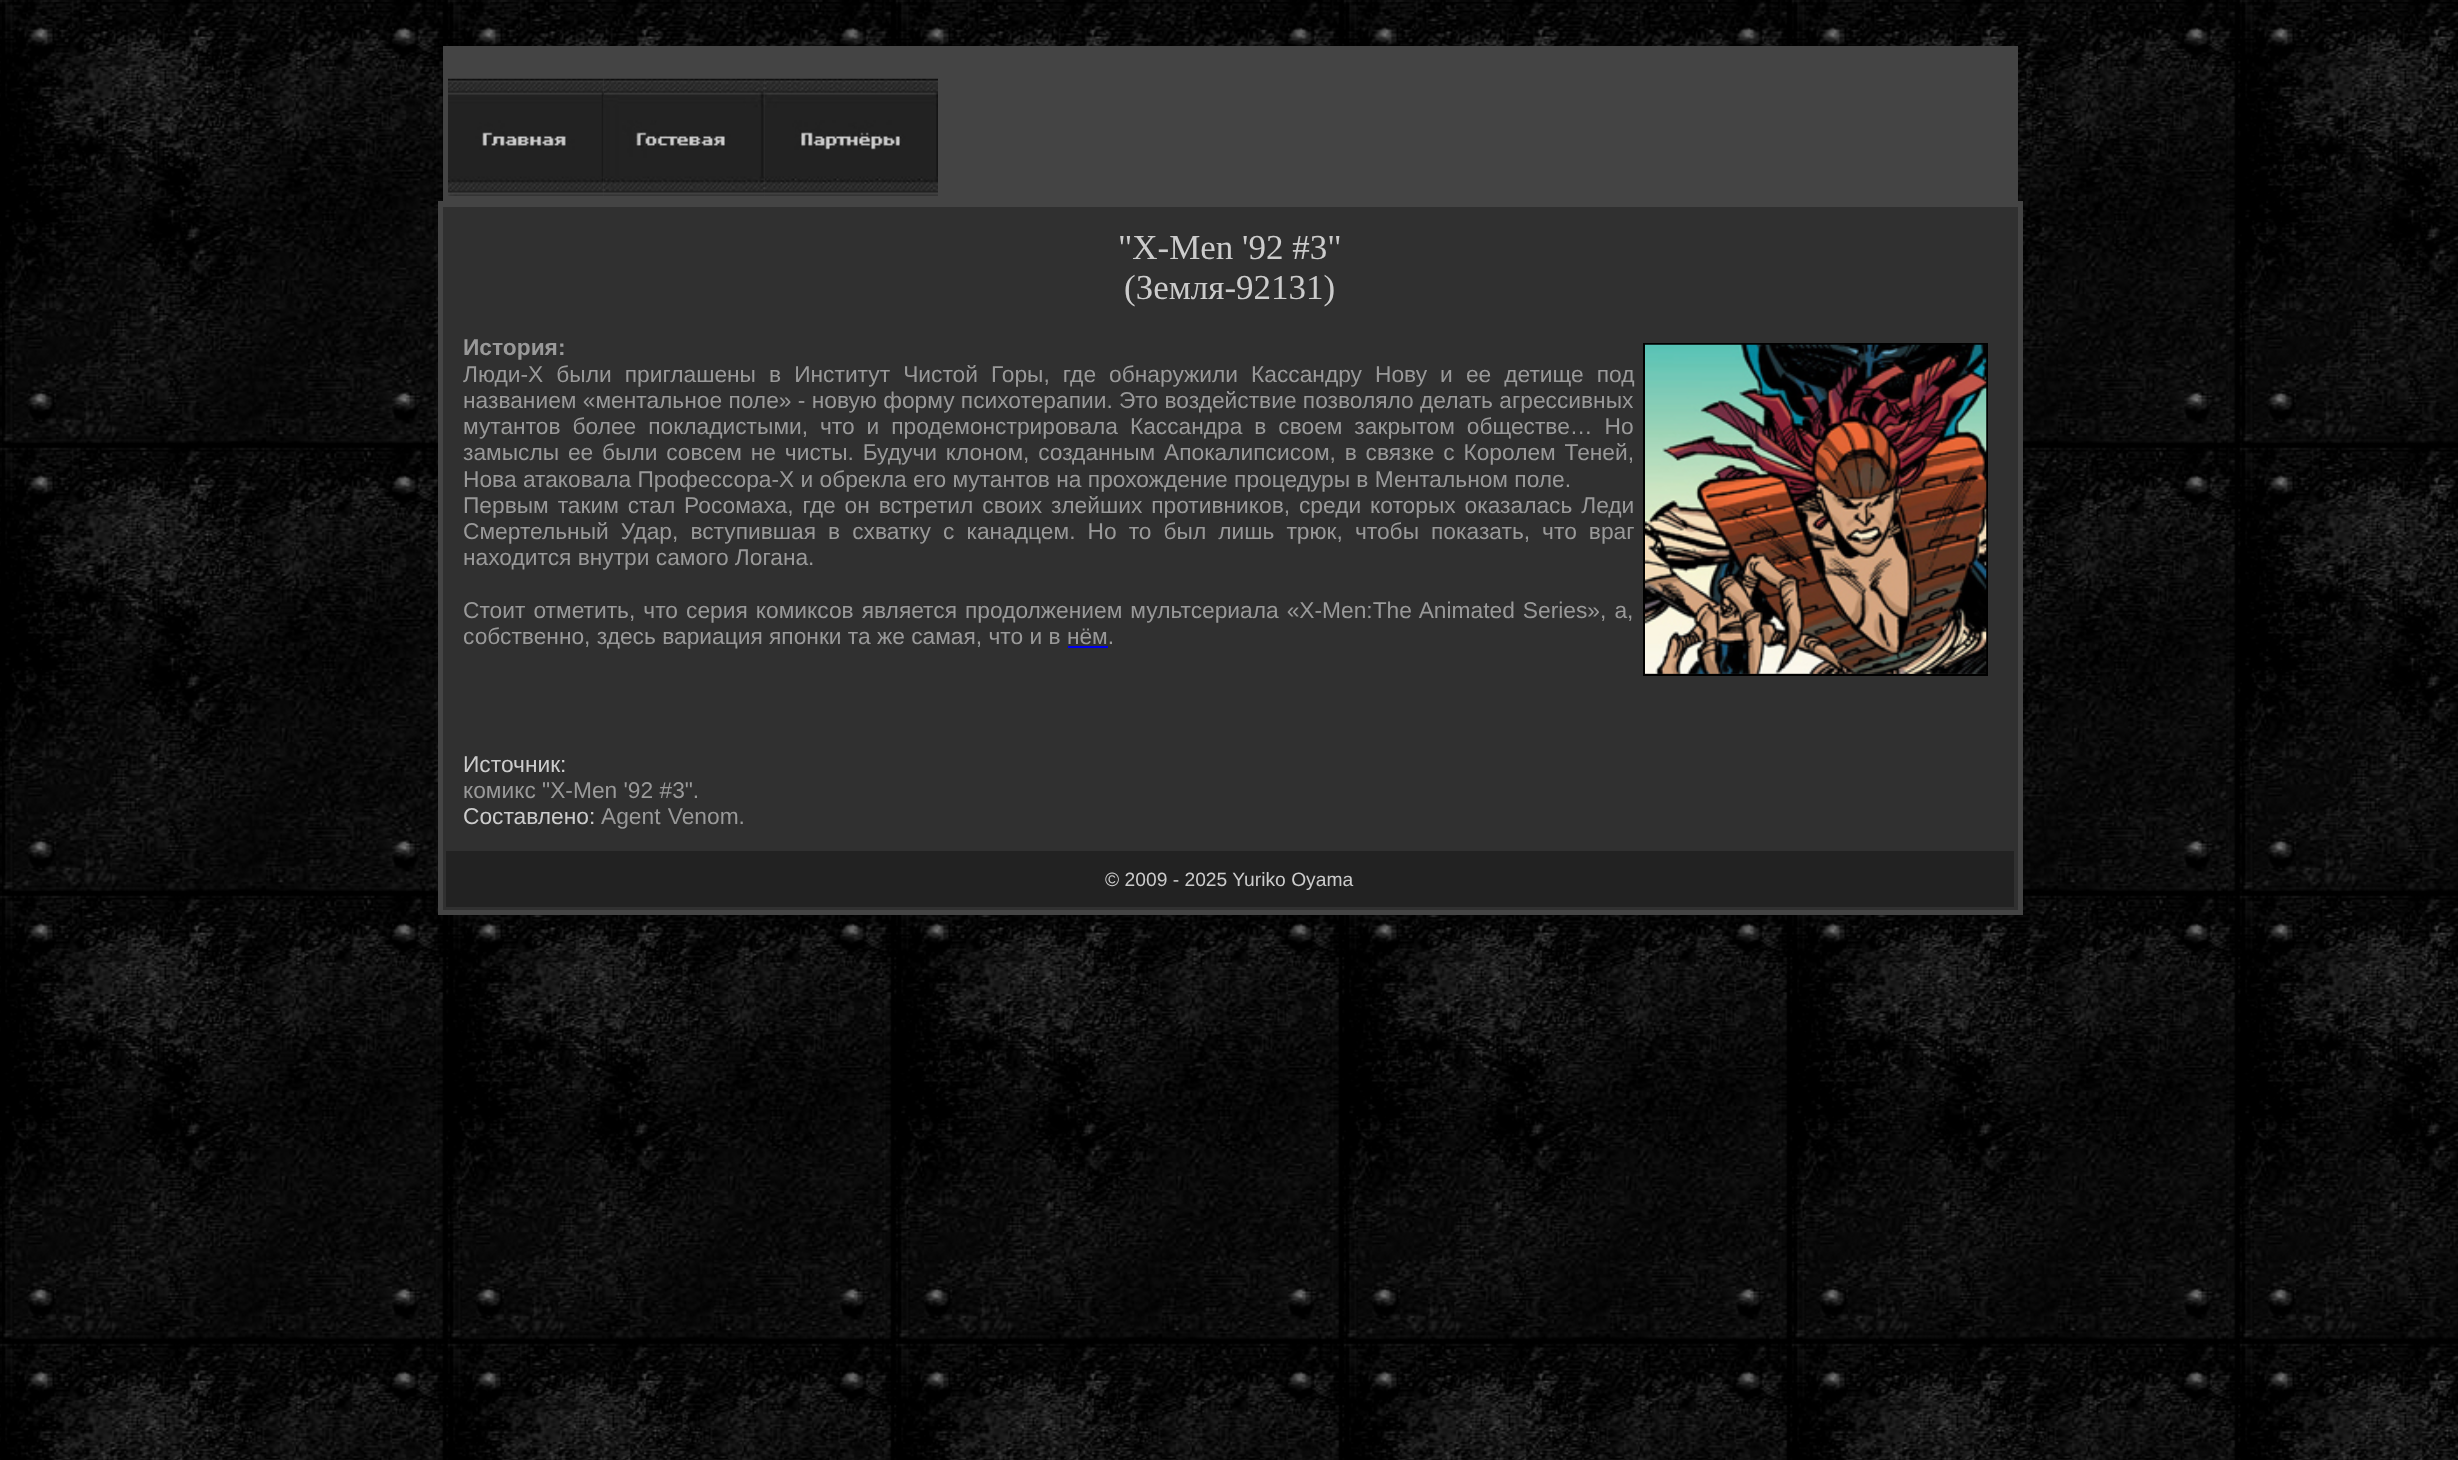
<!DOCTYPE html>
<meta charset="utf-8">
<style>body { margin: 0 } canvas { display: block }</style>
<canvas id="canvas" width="2458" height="1460"></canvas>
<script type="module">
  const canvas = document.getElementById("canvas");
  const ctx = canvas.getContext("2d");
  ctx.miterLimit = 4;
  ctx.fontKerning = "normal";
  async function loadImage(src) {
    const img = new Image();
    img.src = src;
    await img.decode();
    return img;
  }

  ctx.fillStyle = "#ffffff";
  ctx.fillRect(0, 0, 2458, 1460);
  ctx.drawImage(await loadImage("img1.png"), 0, 0, 2458, 1460);
  ctx.fillStyle = "#444444";
  ctx.fillRect(443, 46, 1575, 155);
  ctx.drawImage(await loadImage("img2.png"), 448, 78, 156, 118);
  ctx.drawImage(await loadImage("img3.png"), 604, 78, 161, 118);
  ctx.drawImage(await loadImage("img4.png"), 764, 78, 174, 118);
  ctx.fillRect(438, 201, 1585, 714);
  ctx.fillStyle = "#303030";
  ctx.fillRect(443, 207, 1575, 703);
  ctx.font = "35px Liberation Serif";
  ctx.fillStyle = "#cccccc";
  ctx.fillText("\"X-Men '92 #3\"", 1118, 259);
  ctx.fillText("(Земля-92131)", 1124, 299);
  ctx.font = "bold 22.75px Liberation Sans";
  ctx.fillStyle = "#999999";
  ctx.fillText("История:", 463, 355);
  ctx.strokeStyle = "#000000";
  ctx.lineWidth = 2;
  ctx.strokeRect(1644, 344, 343, 331);
  ctx.drawImage(await loadImage("img5.png"), 1645, 344, 342, 330);
  ctx.wordSpacing = "6.75px";
  ctx.font = "22.75px Liberation Sans";
  ctx.fillText("Люди-Х были приглашены в Институт Чистой Горы, где обнаружили Кассандру Нову и ее детище под", 463, 382);
  ctx.wordSpacing = "0px";
  ctx.fillText("названием «ментальное поле» - новую форму психотерапии. Это воздействие позволяло делать агрессивных", 463, 408);
  ctx.wordSpacing = "5.6px";
  ctx.fillText("мутантов более покладистыми, что и продемонстрировала Кассандра в своем закрытом обществе… Но", 463, 434);
  ctx.wordSpacing = "2.5px";
  ctx.fillText("замыслы ее были совсем не чисты. Будучи клоном, созданным Апокалипсисом, в связке с Королем Теней,", 463, 460);
  ctx.wordSpacing = "0px";
  ctx.fillText("Нова атаковала Профессора-Х и обрекла его мутантов на прохождение процедуры в Ментальном поле.", 463, 487);
  ctx.wordSpacing = "2.6px";
  ctx.fillText("Первым таким стал Росомаха, где он встретил своих злейших противников, среди которых оказалась Леди", 463, 513);
  ctx.wordSpacing = "5.75px";
  ctx.fillText("Смертельный Удар, вступившая в схватку с канадцем. Но то был лишь трюк, чтобы показать, что враг", 463, 539);
  ctx.wordSpacing = "0px";
  ctx.fillText("находится внутри самого Логана.", 463, 565);
  ctx.wordSpacing = "1.75px";
  ctx.fillText("Стоит отметить, что серия комиксов является продолжением мультсериала «X-Men:The Animated Series», а,", 463, 618);
  ctx.wordSpacing = "0px";
  ctx.fillText("собственно, здесь вариация японки та же самая, что и в нём.", 463, 644);
  ctx.fillStyle = "#0000ee";
  ctx.fillRect(1068, 646, 40, 2);
  ctx.fillStyle = "#cccccc";
  ctx.fillText("Источник:", 463, 772);
  ctx.fillStyle = "#999999";
  ctx.fillText("комикс \"X-Men '92 #3\".", 463, 798);
  ctx.fillStyle = "#cccccc";
  ctx.fillText("Cоставлено:", 463, 824);
  ctx.wordSpacing = "1px";
  ctx.fillStyle = "#999999";
  ctx.fillText("Agent Venom.", 601, 824);
  ctx.fillStyle = "#222222";
  ctx.fillRect(446, 851, 1568, 56);
  ctx.wordSpacing = "0px";
  ctx.font = "19.25px Liberation Sans";
  ctx.fillStyle = "#cccccc";
  ctx.fillText("© 2009 - 2025 Yuriko Oyama", 1105, 886);
</script>
